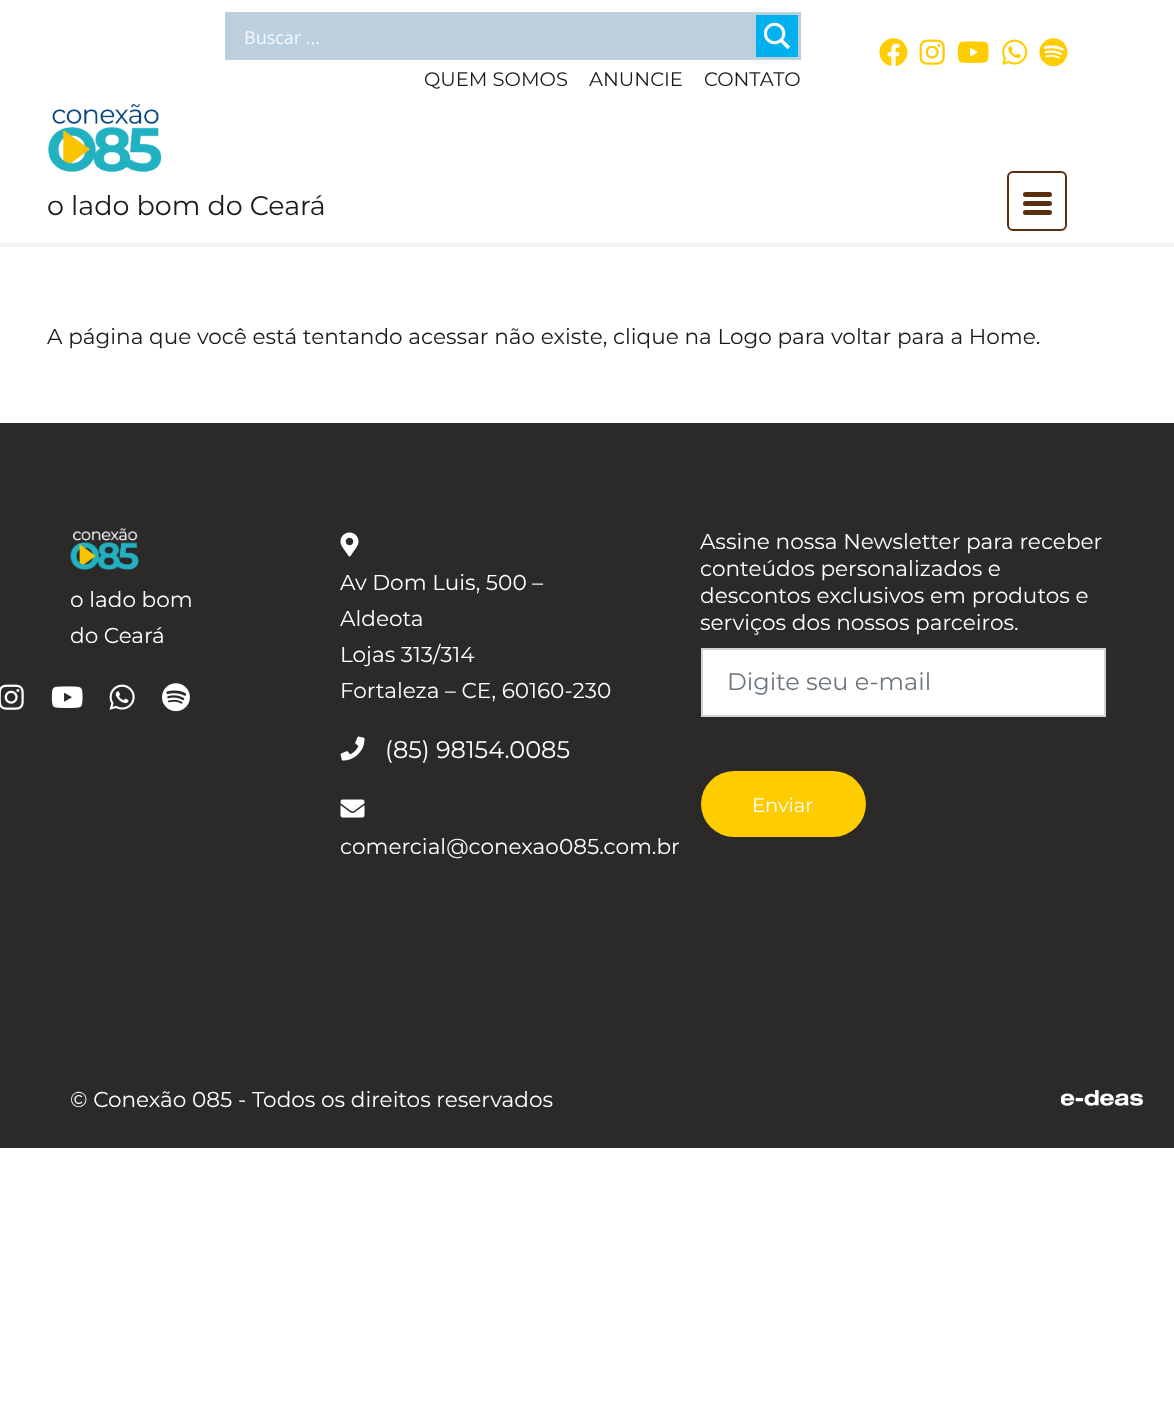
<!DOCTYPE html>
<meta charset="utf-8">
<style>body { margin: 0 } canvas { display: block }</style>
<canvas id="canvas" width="1174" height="1408"></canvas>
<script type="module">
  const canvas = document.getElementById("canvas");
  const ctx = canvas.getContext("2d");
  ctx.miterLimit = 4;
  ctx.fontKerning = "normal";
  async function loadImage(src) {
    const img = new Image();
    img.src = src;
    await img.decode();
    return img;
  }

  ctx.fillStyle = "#ffffff";
  ctx.fillRect(0, 0, 1174, 1408);
  ctx.fillStyle = "#f1f1f1";
  ctx.fillRect(0, 243, 1174, 4);
  ctx.fillStyle = "#bbcfdf";
  ctx.fillRect(225, 12, 576, 48);
  ctx.font = "18px Open Sans";
  ctx.fillStyle = "#f5f8fa";
  ctx.fillText("Buscar ...", 244, 44);
  ctx.fillStyle = "#00b0ef";
  ctx.fillRect(756, 15, 42, 42);
  ctx.drawImage(await loadImage("img1.png"), 763, 22, 28, 28);
  ctx.font = "100 19.5px Montserrat";
  ctx.fillStyle = "#1a1a1a";
  ctx.fillText("QUEM SOMOS", 424, 86);
  ctx.fillText("ANUNCIE", 589, 86);
  ctx.fillText("CONTATO", 704, 86);
  ctx.drawImage(await loadImage("img2.png"), 879, 38, 29, 28);
  ctx.drawImage(await loadImage("img3.png"), 919, 39, 26, 26);
  ctx.drawImage(await loadImage("img4.png"), 957, 41, 32, 22);
  ctx.drawImage(await loadImage("img5.png"), 1002, 39, 26, 26);
  ctx.drawImage(await loadImage("img6.png"), 1039, 38, 29, 29);
  ctx.drawImage(await loadImage("img7.png"), 48, 104, 114, 68);
  ctx.font = "100 27px Montserrat";
  ctx.fillText("o lado bom do Ceará", 47, 215);
  ctx.beginPath();
  ctx.roundRect(1008, 172, 58, 58, 5);
  ctx.strokeStyle = "#5b2e0f";
  ctx.lineWidth = 2;
  ctx.stroke();
  ctx.fillStyle = "#5b2e0f";
  ctx.beginPath();
  ctx.roundRect(1023, 192, 29, 5, 2.5);
  ctx.fill();
  ctx.beginPath();
  ctx.roundRect(1023, 201, 29, 5, 2.5);
  ctx.fill();
  ctx.beginPath();
  ctx.roundRect(1023, 210, 29, 5, 2.5);
  ctx.fill();
  ctx.font = "100 21.6px Montserrat";
  ctx.fillStyle = "#1a1a1a";
  ctx.fillText("A página que você está tentando acessar não existe, clique na Logo para voltar para a Home.", 47, 344);
  ctx.fillStyle = "#2b2a29";
  ctx.fillRect(0, 423, 1174, 725);
  ctx.drawImage(await loadImage("img8.png"), 70, 528, 69, 42);
  ctx.fillStyle = "#ffffff";
  ctx.fillText("o lado bom", 70, 607);
  ctx.fillText("do Ceará", 70, 643);
  ctx.drawImage(await loadImage("img9.png"), 0, 684, 24, 26);
  ctx.drawImage(await loadImage("img10.png"), 51, 686, 32, 22);
  ctx.drawImage(await loadImage("img11.png"), 109, 684, 26, 26);
  ctx.drawImage(await loadImage("img12.png"), 162, 683, 28, 29);
  ctx.drawImage(await loadImage("img13.png"), 340, 532, 19, 25);
  ctx.fillText("Av Dom Luis, 500 –", 340, 590);
  ctx.fillText("Aldeota", 340, 626);
  ctx.fillText("Lojas 313/314", 340, 662);
  ctx.fillText("Fortaleza – CE, 60160-230", 340, 698);
  ctx.drawImage(await loadImage("img14.png"), 340, 736, 25, 25);
  ctx.font = "100 24px Montserrat";
  ctx.fillText("(85) 98154.0085", 385, 758);
  ctx.drawImage(await loadImage("img15.png"), 340, 799, 25, 19);
  ctx.font = "100 21.6px Montserrat";
  ctx.fillText("comercial@conexao085.com.br", 340, 854);
  ctx.fillText("Assine nossa Newsletter para receber", 700, 549);
  ctx.fillText("conteúdos personalizados e", 700, 576);
  ctx.fillText("descontos exclusivos em produtos e", 700, 603);
  ctx.fillText("serviços dos nossos parceiros.", 700, 630);
  ctx.beginPath();
  ctx.rect(702, 649, 403, 67);
  ctx.fill();
  ctx.strokeStyle = "#ced4da";
  ctx.stroke();
  ctx.font = "100 24px Montserrat";
  ctx.fillStyle = "#6c757d";
  ctx.fillText("Digite seu e-mail", 727, 690);
  ctx.fillStyle = "#ffcc00";
  ctx.beginPath();
  ctx.roundRect(701, 771, 165, 66, 33);
  ctx.fill();
  ctx.font = "100 19.5px Montserrat";
  ctx.fillStyle = "#ffffff";
  ctx.fillText("Enviar", 752, 812);
  ctx.font = "100 21.6px Montserrat";
  ctx.fillText("© Conexão 085 - Todos os direitos reservados", 70, 1107);
  ctx.drawImage(await loadImage("img16.png"), 1061, 1090, 82, 16);
</script>
